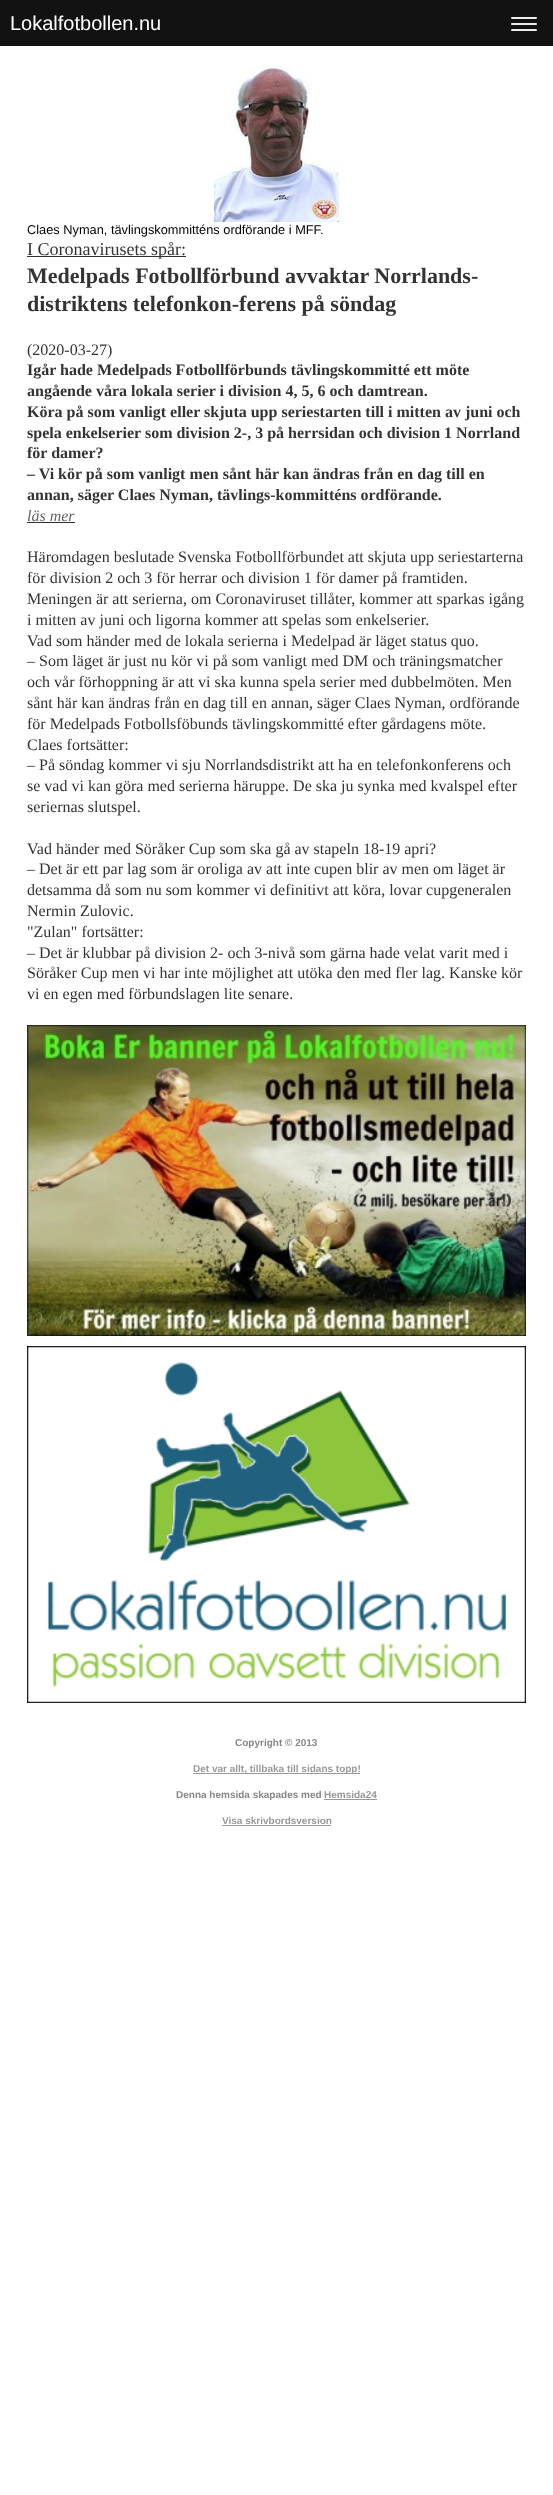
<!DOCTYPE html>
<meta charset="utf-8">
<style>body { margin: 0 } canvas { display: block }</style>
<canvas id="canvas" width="553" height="2495"></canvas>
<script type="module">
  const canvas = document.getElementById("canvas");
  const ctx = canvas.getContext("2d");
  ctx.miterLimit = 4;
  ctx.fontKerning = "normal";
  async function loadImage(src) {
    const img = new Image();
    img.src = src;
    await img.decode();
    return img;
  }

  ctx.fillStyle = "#ffffff";
  ctx.fillRect(0, 0, 553, 2495);
  ctx.fillStyle = "#121212";
  ctx.fillRect(0, 0, 553, 46);
  ctx.font = "20px Liberation Sans";
  ctx.fillStyle = "#ffffff";
  ctx.fillText("Lokalfotbollen.nu", 10, 30);
  ctx.fillStyle = "#eeeeee";
  ctx.beginPath();
  ctx.roundRect(511, 17, 26, 2, 1);
  ctx.fill();
  ctx.beginPath();
  ctx.roundRect(511, 23, 26, 2, 1);
  ctx.fill();
  ctx.beginPath();
  ctx.roundRect(511, 29, 26, 2, 1);
  ctx.fill();
  ctx.drawImage(await loadImage("img1.png"), 214, 66, 125, 156);
  ctx.font = "12.8px Liberation Sans";
  ctx.fillStyle = "#000000";
  ctx.fillText("Claes Nyman, tävlingskommitténs ordförande i MFF.", 27, 234);
  ctx.fillStyle = "#333333";
  ctx.fillRect(27, 256, 159, 1);
  ctx.font = "18px Liberation Serif";
  ctx.fillText("I Coronavirusets spår:", 27, 255);
  ctx.font = "bold 22px Liberation Serif";
  ctx.fillText("Medelpads Fotbollförbund avvaktar Norrlands-", 27, 283);
  ctx.fillText("distriktens telefonkon-ferens på söndag", 27, 311);
  ctx.font = "16px Liberation Serif";
  ctx.fillText("(2020-03-27)", 27, 355);
  ctx.font = "bold 16px Liberation Serif";
  ctx.fillText("Igår hade Medelpads Fotbollförbunds tävlingskommitté ett möte", 27, 375);
  ctx.fillText("angående våra lokala serier i division 4, 5, 6 och damtrean.", 27, 396);
  ctx.fillText("Köra på som vanligt eller skjuta upp seriestarten till i mitten av juni och", 27, 417);
  ctx.fillText("spela enkelserier som division 2-, 3 på herrsidan och division 1 Norrland", 27, 438);
  ctx.fillText("för damer?", 27, 458);
  ctx.fillText("– Vi kör på som vanligt men sånt här kan ändras från en dag till en", 27, 479);
  ctx.fillText("annan, säger Claes Nyman, tävlings-kommitténs ordförande.", 27, 500);
  ctx.font = "italic 16px Liberation Serif";
  ctx.fillStyle = "#636363";
  ctx.fillText("läs mer", 27, 521);
  ctx.fillStyle = "#333333";
  ctx.fillRect(27, 522, 48, 1);
  ctx.font = "16px Liberation Serif";
  ctx.fillText("Häromdagen beslutade Svenska Fotbollförbundet att skjuta upp seriestarterna", 27, 562);
  ctx.fillText("för division 2 och 3 för herrar och division 1 för damer på framtiden.", 27, 583);
  ctx.fillText("Meningen är att serierna, om Coronaviruset tillåter, kommer att sparkas igång", 27, 604);
  ctx.fillText("i mitten av juni och ligorna kommer att spelas som enkelserier.", 27, 625);
  ctx.fillText("Vad som händer med de lokala serierna i Medelpad är läget status quo.", 27, 646);
  ctx.fillText("– Som läget är just nu kör vi på som vanligt med DM och träningsmatcher", 27, 666);
  ctx.fillText("och vår förhoppning är att vi ska kunna spela serier med dubbelmöten. Men", 27, 687);
  ctx.fillText("sånt här kan ändras från en dag till en annan, säger Claes Nyman, ordförande", 27, 708);
  ctx.fillText("för Medelpads Fotbollsföbunds tävlingskommitté efter gårdagens möte.", 27, 729);
  ctx.fillText("Claes fortsätter:", 27, 750);
  ctx.fillText("– På söndag kommer vi sju Norrlandsdistrikt att ha en telefonkonferens och", 27, 770);
  ctx.fillText("se vad vi kan göra med serierna häruppe. De ska ju synka med kvalspel efter", 27, 791);
  ctx.fillText("seriernas slutspel.", 27, 812);
  ctx.fillText("Vad händer med Söråker Cup som ska gå av stapeln 18-19 apri?", 27, 854);
  ctx.fillText("– Det är ett par lag som är oroliga av att inte cupen blir av men om läget är", 27, 874);
  ctx.fillText("detsamma då som nu som kommer vi definitivt att köra, lovar cupgeneralen", 27, 895);
  ctx.fillText("Nermin Zulovic.", 27, 916);
  ctx.fillText("\"Zulan\" fortsätter:", 27, 937);
  ctx.fillText("– Det är klubbar på division 2- och 3-nivå som gärna hade velat varit med i", 27, 958);
  ctx.fillText("Söråker Cup men vi har inte möjlighet att utöka den med fler lag. Kanske kör", 27, 978);
  ctx.fillText("vi en egen med förbundslagen lite senare.", 27, 999);
  ctx.drawImage(await loadImage("img2.png"), 27, 1025, 499, 311);
  ctx.drawImage(await loadImage("img3.png"), 27, 1346, 499, 357);
  ctx.font = "bold 10px Liberation Sans";
  ctx.fillStyle = "#878787";
  ctx.fillText("Copyright © 2013", 235, 1746);
  ctx.fillStyle = "#999999";
  ctx.fillRect(193, 1773, 167, 1);
  ctx.fillText("Det var allt, tillbaka till sidans topp!", 193, 1772);
  ctx.fillStyle = "#878787";
  ctx.fillText("Denna hemsida skapades med", 176, 1798);
  ctx.fillStyle = "#999999";
  ctx.fillText("Hemsida24", 324, 1798);
  ctx.fillRect(324, 1799, 53, 1);
  ctx.fillText("Visa skrivbordsversion", 222, 1824);
  ctx.fillRect(222, 1825, 109, 1);
</script>
